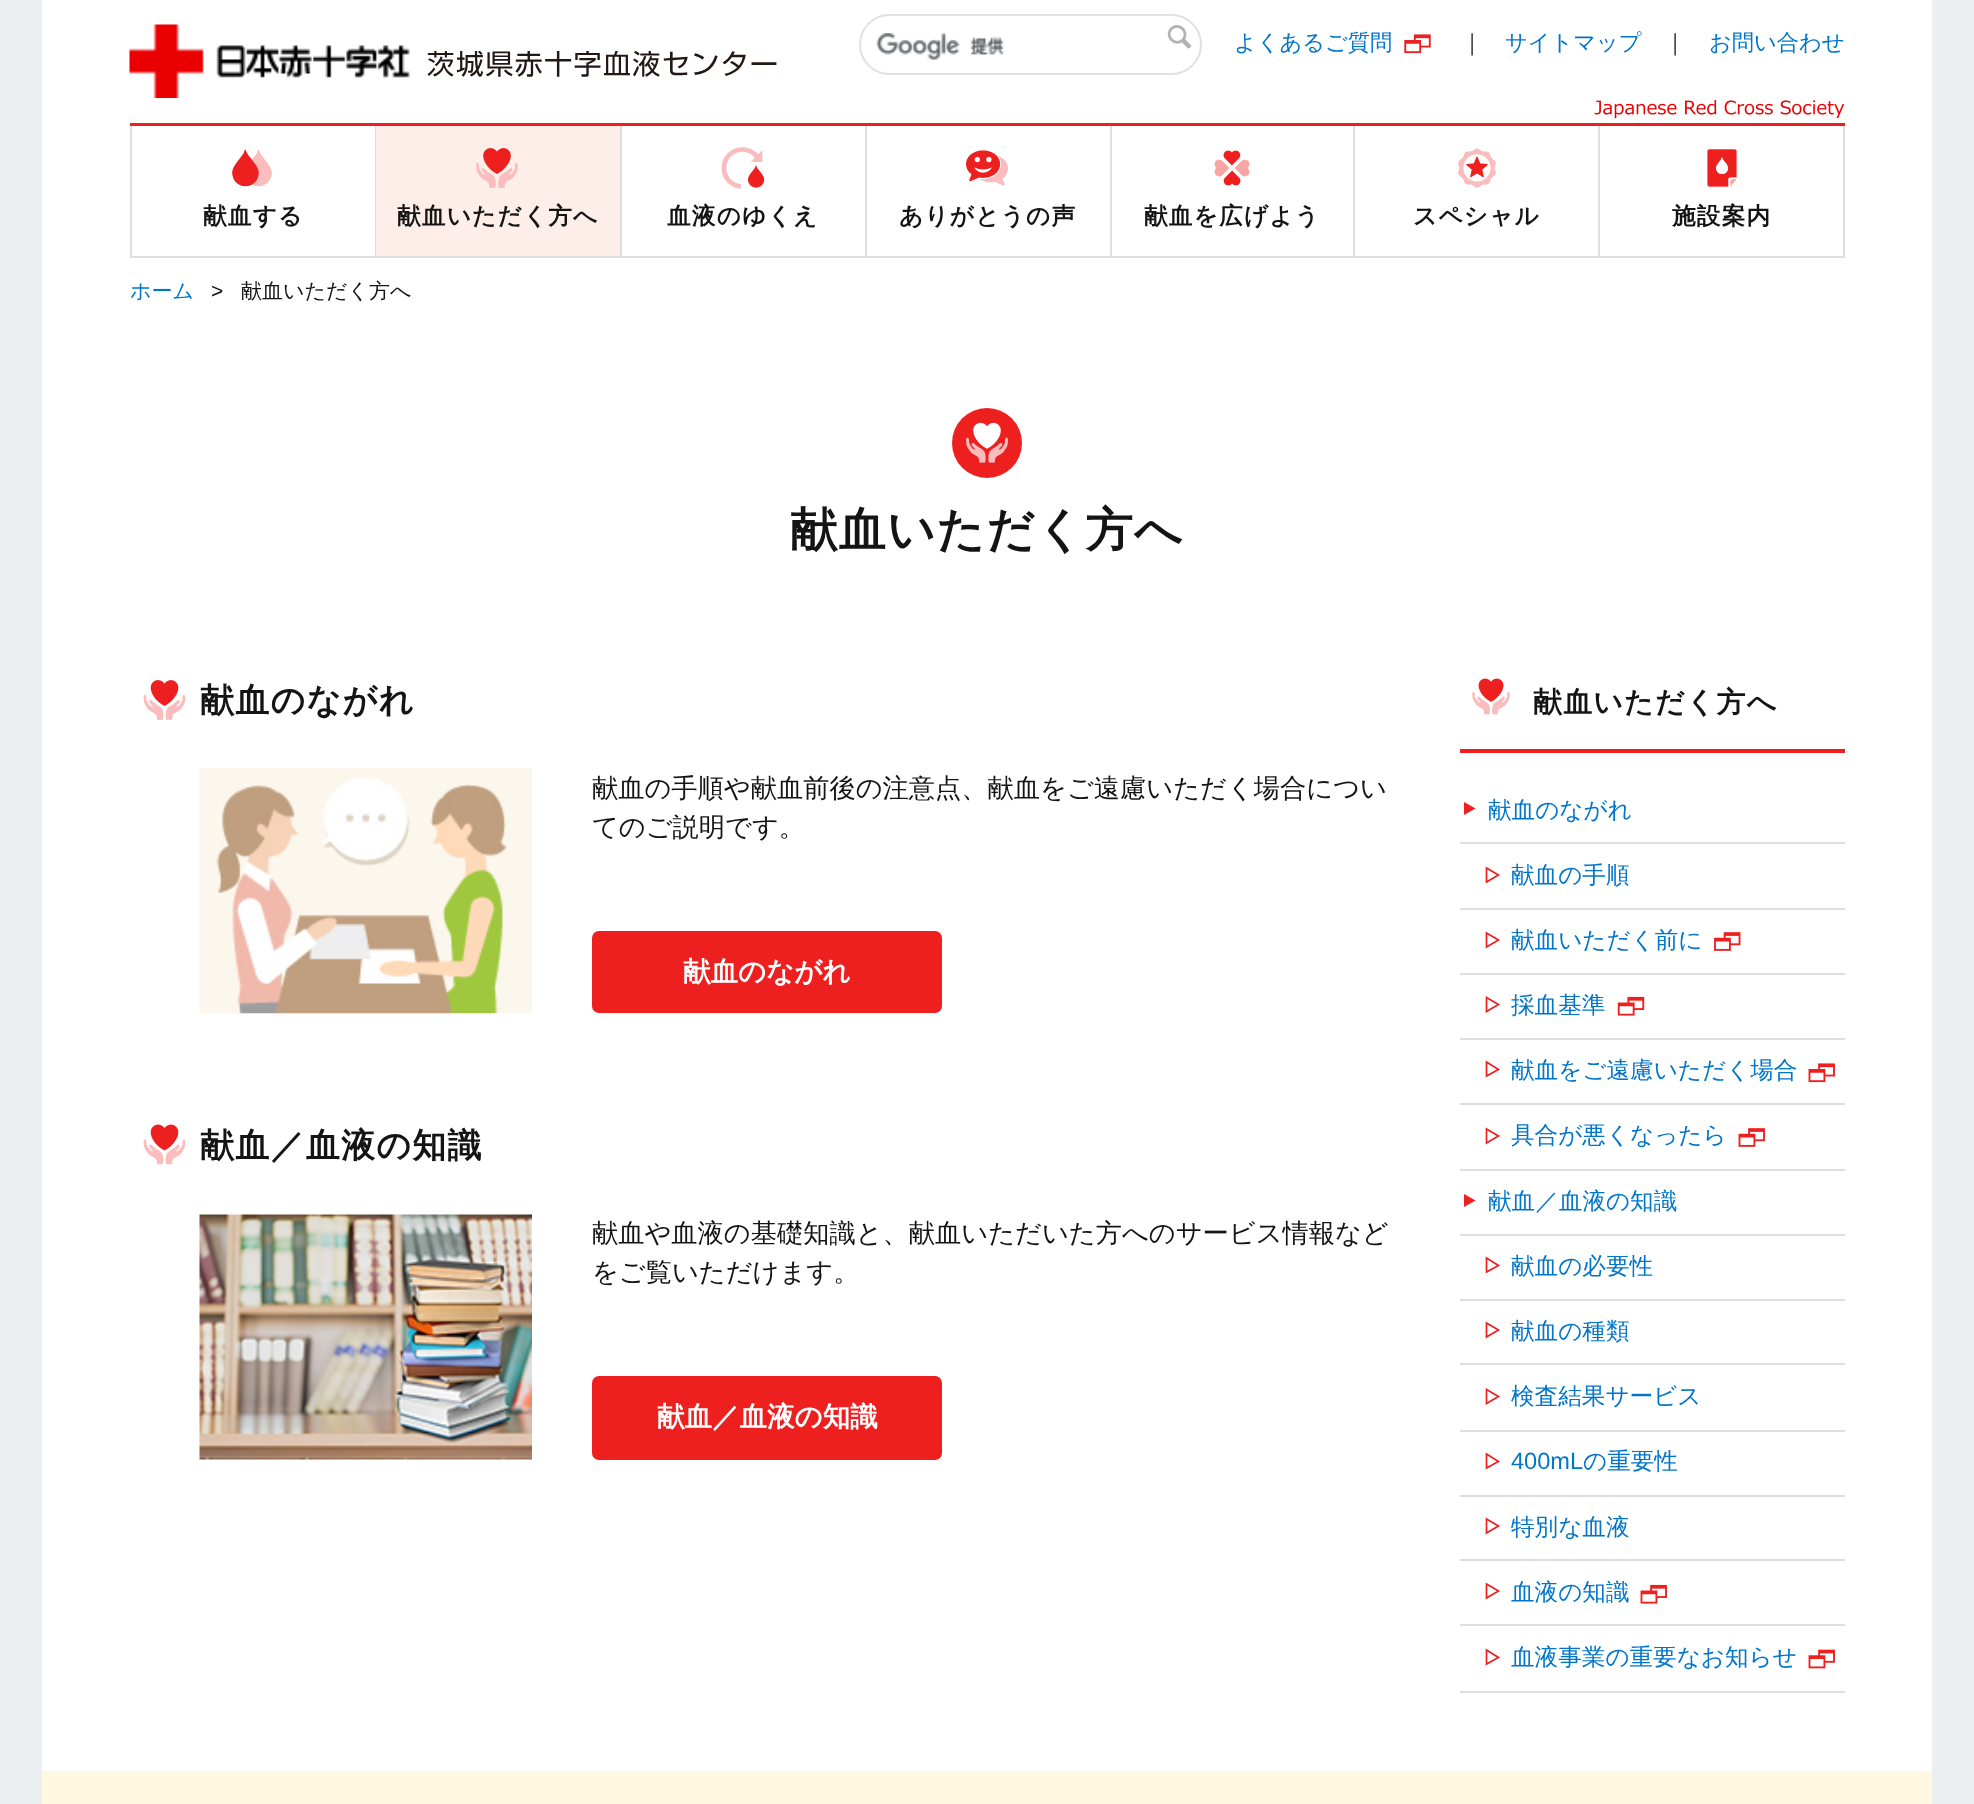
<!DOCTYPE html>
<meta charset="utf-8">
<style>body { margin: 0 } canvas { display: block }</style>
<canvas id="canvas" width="1974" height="1804"></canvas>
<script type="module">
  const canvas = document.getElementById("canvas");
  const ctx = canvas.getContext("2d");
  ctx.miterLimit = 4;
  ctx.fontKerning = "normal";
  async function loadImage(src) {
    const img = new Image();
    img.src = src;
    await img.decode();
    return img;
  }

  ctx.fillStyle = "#eceff1";
  ctx.fillRect(0, 0, 1974, 1804);
  ctx.fillStyle = "#ffffff";
  ctx.fillRect(42, 0, 1890, 1771);
  ctx.fillStyle = "#ed201f";
  ctx.fillRect(130, 123, 1715, 3);
  ctx.drawImage(await loadImage("img1.png"), 129, 24, 281, 74);
  ctx.drawImage(await loadImage("img2.png"), 427, 51, 350, 26);
  ctx.beginPath();
  ctx.roundRect(860, 15, 341, 59, 29.5);
  ctx.strokeStyle = "#dfe1e5";
  ctx.lineWidth = 2;
  ctx.stroke();
  ctx.drawImage(await loadImage("img3.png"), 876, 33, 128, 27);
  ctx.drawImage(await loadImage("img4.png"), 1167, 25, 25, 24);
  ctx.font = "500 22.25px WenQuanYi Zen Hei";
  ctx.fillStyle = "#0075c9";
  ctx.fillText("よくあるご質問", 1234, 50);
  ctx.drawImage(await loadImage("img5.png"), 1404, 34, 27, 20);
  ctx.fillStyle = "#141414";
  ctx.fillText("｜", 1461, 50);
  ctx.fillStyle = "#0075c9";
  ctx.fillText("サイトマップ", 1505, 50);
  ctx.fillStyle = "#141414";
  ctx.fillText("｜", 1664, 50);
  ctx.fillStyle = "#0075c9";
  ctx.fillText("お問い合わせ", 1709, 50);
  ctx.drawImage(await loadImage("img6.png"), 1594, 100, 251, 19);
  ctx.fillStyle = "#dedede";
  ctx.fillRect(130, 256, 1468, 2);
  ctx.fillRect(130, 126, 2, 131);
  ctx.drawImage(await loadImage("img7.png"), 232, 149, 40, 38);
  ctx.letterSpacing = "1.25px";
  ctx.font = "bold 23.6px WenQuanYi Zen Hei";
  ctx.fillStyle = "#141414";
  ctx.fillText("献血する", 203, 224);
  ctx.fillStyle = "#dedede";
  ctx.fillRect(375, 126, 2, 131);
  ctx.fillStyle = "#fdeee9";
  ctx.fillRect(376, 126, 244, 130);
  ctx.drawImage(await loadImage("img8.png"), 476, 148, 42, 40);
  ctx.fillStyle = "#141414";
  ctx.fillText("献血いただく方へ", 397, 224);
  ctx.fillStyle = "#dedede";
  ctx.fillRect(620, 126, 2, 131);
  ctx.drawImage(await loadImage("img9.png"), 721, 147, 44, 42);
  ctx.fillStyle = "#141414";
  ctx.fillText("血液のゆくえ", 667, 224);
  ctx.fillStyle = "#dedede";
  ctx.fillRect(865, 126, 2, 131);
  ctx.drawImage(await loadImage("img10.png"), 966, 150, 42, 36);
  ctx.fillStyle = "#141414";
  ctx.fillText("ありがとうの声", 899, 224);
  ctx.fillStyle = "#dedede";
  ctx.fillRect(1110, 126, 2, 131);
  ctx.drawImage(await loadImage("img11.png"), 1214, 150, 36, 36);
  ctx.fillStyle = "#141414";
  ctx.fillText("献血を広げよう", 1144, 224);
  ctx.fillStyle = "#dedede";
  ctx.fillRect(1353, 126, 2, 131);
  ctx.drawImage(await loadImage("img12.png"), 1458, 148, 38, 40);
  ctx.fillStyle = "#141414";
  ctx.fillText("スペシャル", 1413, 224);
  ctx.fillStyle = "#dedede";
  ctx.fillRect(1843, 126, 2, 131);
  ctx.fillRect(1598, 256, 247, 2);
  ctx.fillRect(1598, 126, 2, 131);
  ctx.drawImage(await loadImage("img13.png"), 1707, 149, 30, 38);
  ctx.fillStyle = "#141414";
  ctx.fillText("施設案内", 1672, 224);
  ctx.letterSpacing = "0px";
  ctx.font = "500 21px WenQuanYi Zen Hei";
  ctx.fillStyle = "#0075c9";
  ctx.fillText("ホーム", 130, 298);
  ctx.font = "21px Liberation Sans";
  ctx.fillStyle = "#141414";
  ctx.fillText(">", 211, 298);
  ctx.font = "500 21px WenQuanYi Zen Hei";
  ctx.fillText("献血いただく方へ", 241, 298);
  ctx.fillStyle = "#ed201f";
  ctx.beginPath();
  ctx.arc(987, 443, 35, 0, Math.PI * 2);
  ctx.fill();
  ctx.drawImage(await loadImage("img14.png"), 966, 422, 42, 41);
  ctx.letterSpacing = "1.25px";
  ctx.font = "bold 47.25px WenQuanYi Zen Hei";
  ctx.fillStyle = "#141414";
  ctx.fillText("献血いただく方へ", 790, 546);
  ctx.drawImage(await loadImage("img15.png"), 143, 680, 43, 40);
  ctx.font = "bold 34px WenQuanYi Zen Hei";
  ctx.fillText("献血のながれ", 200, 712);
  ctx.drawImage(await loadImage("img16.png"), 199, 768, 333, 246);
  ctx.letterSpacing = "0px";
  ctx.font = "500 26.25px WenQuanYi Zen Hei";
  ctx.fillText("献血の手順や献血前後の注意点、献血をご遠慮いただく場合につい", 592, 797);
  ctx.fillText("てのご説明です。", 592, 836);
  ctx.fillStyle = "#ed201f";
  ctx.beginPath();
  ctx.roundRect(592, 931, 350, 82, 7);
  ctx.fill();
  ctx.font = "bold 27.5px WenQuanYi Zen Hei";
  ctx.fillStyle = "#ffffff";
  ctx.fillText("献血のながれ", 683, 981);
  ctx.drawImage(await loadImage("img17.png"), 143, 1124, 43, 41);
  ctx.letterSpacing = "1.25px";
  ctx.font = "bold 34px WenQuanYi Zen Hei";
  ctx.fillStyle = "#141414";
  ctx.fillText("献血／血液の知識", 200, 1157);
  ctx.drawImage(await loadImage("img18.png"), 199, 1214, 333, 246);
  ctx.letterSpacing = "0px";
  ctx.font = "500 26.25px WenQuanYi Zen Hei";
  ctx.fillText("献血や血液の基礎知識と、献血いただいた方へのサービス情報など", 592, 1242);
  ctx.fillText("をご覧いただけます。", 592, 1281);
  ctx.fillStyle = "#ed201f";
  ctx.beginPath();
  ctx.roundRect(592, 1376, 350, 84, 7);
  ctx.fill();
  ctx.font = "bold 27.5px WenQuanYi Zen Hei";
  ctx.fillStyle = "#ffffff";
  ctx.fillText("献血／血液の知識", 657, 1426);
  ctx.fillStyle = "#ed201f";
  ctx.fillRect(1460, 749, 385, 4);
  ctx.drawImage(await loadImage("img19.png"), 1472, 678, 38, 37);
  ctx.letterSpacing = "1.25px";
  ctx.font = "bold 28.9px WenQuanYi Zen Hei";
  ctx.fillStyle = "#141414";
  ctx.fillText("献血いただく方へ", 1533, 712);
  ctx.fillStyle = "#dedede";
  ctx.fillRect(1460, 1169, 385, 2);
  ctx.fillStyle = "#ed201f";
  ctx.beginPath();
  ctx.moveTo(1475.5, 808.5);
  ctx.lineTo(1464, 815);
  ctx.lineTo(1464, 802);
  ctx.closePath();
  ctx.fill();
  ctx.letterSpacing = "0px";
  ctx.font = "500 23.6px WenQuanYi Zen Hei";
  ctx.fillStyle = "#0075c9";
  ctx.fillText("献血のながれ", 1488, 818);
  ctx.fillStyle = "#dedede";
  ctx.fillRect(1460, 842, 385, 2);
  ctx.fillRect(1460, 908, 385, 2);
  ctx.beginPath();
  ctx.moveTo(1486.5, 882);
  ctx.lineTo(1486.5, 868);
  ctx.lineTo(1498.5, 875);
  ctx.closePath();
  ctx.strokeStyle = "#ed201f";
  ctx.lineWidth = 1.7;
  ctx.stroke();
  ctx.fillStyle = "#0075c9";
  ctx.fillText("献血の手順", 1511, 883);
  ctx.fillStyle = "#dedede";
  ctx.fillRect(1460, 973, 385, 2);
  ctx.beginPath();
  ctx.moveTo(1486.5, 947);
  ctx.lineTo(1486.5, 933);
  ctx.lineTo(1498.5, 940);
  ctx.closePath();
  ctx.stroke();
  ctx.fillStyle = "#0075c9";
  ctx.fillText("献血いただく前に", 1511, 948);
  ctx.drawImage(await loadImage("img20.png"), 1714, 932, 27, 19);
  ctx.fillStyle = "#dedede";
  ctx.fillRect(1460, 1038, 385, 2);
  ctx.beginPath();
  ctx.moveTo(1486.5, 1011.5);
  ctx.lineTo(1486.5, 997.5);
  ctx.lineTo(1498.5, 1004.5);
  ctx.closePath();
  ctx.stroke();
  ctx.fillStyle = "#0075c9";
  ctx.fillText("採血基準", 1511, 1013);
  ctx.drawImage(await loadImage("img21.png"), 1617, 996, 28, 20);
  ctx.fillStyle = "#dedede";
  ctx.fillRect(1460, 1103, 385, 2);
  ctx.beginPath();
  ctx.moveTo(1486.5, 1076);
  ctx.lineTo(1486.5, 1062);
  ctx.lineTo(1498.5, 1069.5);
  ctx.closePath();
  ctx.stroke();
  ctx.fillStyle = "#0075c9";
  ctx.fillText("献血をご遠慮いただく場合", 1511, 1078);
  ctx.drawImage(await loadImage("img22.png"), 1808, 1063, 27, 20);
  ctx.beginPath();
  ctx.moveTo(1486.5, 1143);
  ctx.lineTo(1486.5, 1129);
  ctx.lineTo(1498.5, 1136);
  ctx.closePath();
  ctx.stroke();
  ctx.fillText("具合が悪くなったら", 1511, 1143);
  ctx.drawImage(await loadImage("img23.png"), 1738, 1128, 27, 19);
  ctx.fillStyle = "#dedede";
  ctx.fillRect(1460, 1691, 385, 2);
  ctx.fillStyle = "#ed201f";
  ctx.beginPath();
  ctx.moveTo(1475.5, 1200.5);
  ctx.lineTo(1464, 1207);
  ctx.lineTo(1464, 1194);
  ctx.closePath();
  ctx.fill();
  ctx.fillStyle = "#0075c9";
  ctx.fillText("献血／血液の知識", 1488, 1209);
  ctx.fillStyle = "#dedede";
  ctx.fillRect(1460, 1234, 385, 2);
  ctx.fillRect(1460, 1299, 385, 2);
  ctx.beginPath();
  ctx.moveTo(1486.5, 1272);
  ctx.lineTo(1486.5, 1258);
  ctx.lineTo(1498.5, 1265.5);
  ctx.closePath();
  ctx.stroke();
  ctx.fillStyle = "#0075c9";
  ctx.fillText("献血の必要性", 1511, 1274);
  ctx.fillStyle = "#dedede";
  ctx.fillRect(1460, 1363, 385, 2);
  ctx.beginPath();
  ctx.moveTo(1486.5, 1337);
  ctx.lineTo(1486.5, 1323);
  ctx.lineTo(1498.5, 1330);
  ctx.closePath();
  ctx.stroke();
  ctx.fillStyle = "#0075c9";
  ctx.fillText("献血の種類", 1511, 1339);
  ctx.fillStyle = "#dedede";
  ctx.fillRect(1460, 1430, 385, 2);
  ctx.beginPath();
  ctx.moveTo(1486.5, 1403.5);
  ctx.lineTo(1486.5, 1389.5);
  ctx.lineTo(1498.5, 1396.5);
  ctx.closePath();
  ctx.stroke();
  ctx.fillStyle = "#0075c9";
  ctx.fillText("検査結果サービス", 1511, 1404);
  ctx.fillStyle = "#dedede";
  ctx.fillRect(1460, 1495, 385, 2);
  ctx.beginPath();
  ctx.moveTo(1486.5, 1468);
  ctx.lineTo(1486.5, 1454);
  ctx.lineTo(1498.5, 1461.5);
  ctx.closePath();
  ctx.stroke();
  ctx.font = "23.6px Liberation Sans";
  ctx.fillStyle = "#0075c9";
  ctx.fillText("400mL", 1511, 1469);
  ctx.font = "500 23.6px WenQuanYi Zen Hei";
  ctx.fillText("の重要性", 1583, 1469);
  ctx.fillStyle = "#dedede";
  ctx.fillRect(1460, 1559, 385, 2);
  ctx.beginPath();
  ctx.moveTo(1486.5, 1533);
  ctx.lineTo(1486.5, 1519);
  ctx.lineTo(1498.5, 1526);
  ctx.closePath();
  ctx.stroke();
  ctx.fillStyle = "#0075c9";
  ctx.fillText("特別な血液", 1511, 1535);
  ctx.fillStyle = "#dedede";
  ctx.fillRect(1460, 1624, 385, 2);
  ctx.beginPath();
  ctx.moveTo(1486.5, 1598);
  ctx.lineTo(1486.5, 1584);
  ctx.lineTo(1498.5, 1591);
  ctx.closePath();
  ctx.stroke();
  ctx.fillStyle = "#0075c9";
  ctx.fillText("血液の知識", 1511, 1600);
  ctx.drawImage(await loadImage("img24.png"), 1640, 1584, 27, 20);
  ctx.beginPath();
  ctx.moveTo(1486.5, 1664);
  ctx.lineTo(1486.5, 1650);
  ctx.lineTo(1498.5, 1657.5);
  ctx.closePath();
  ctx.stroke();
  ctx.fillText("血液事業の重要なお知らせ", 1511, 1665);
  ctx.drawImage(await loadImage("img25.png"), 1808, 1649, 27, 20);
  ctx.fillStyle = "#fff8e1";
  ctx.fillRect(42, 1771, 1890, 33);
</script>
